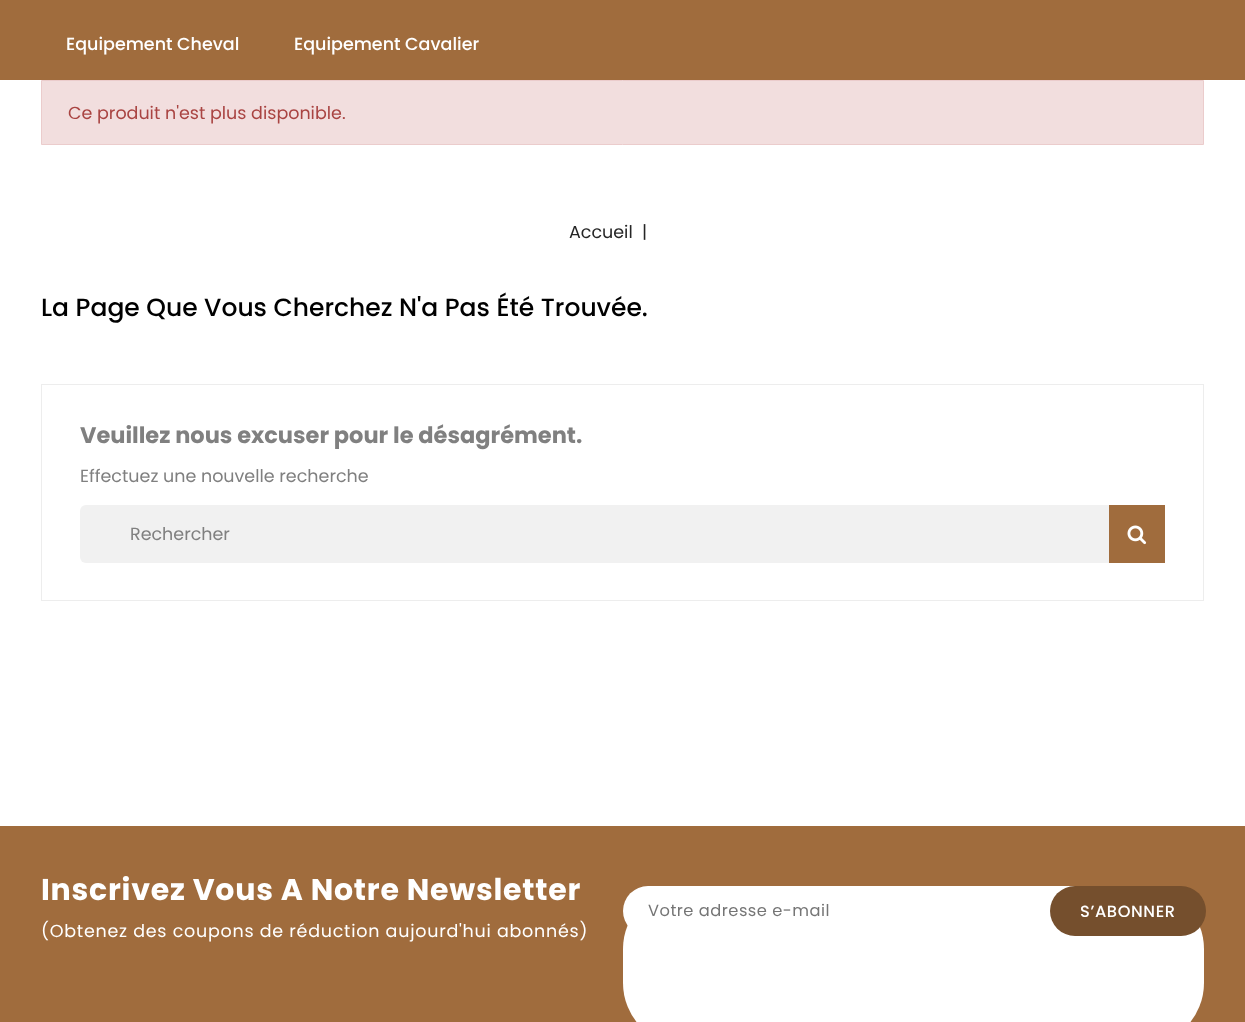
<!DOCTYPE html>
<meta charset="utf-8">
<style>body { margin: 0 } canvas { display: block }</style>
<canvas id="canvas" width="1245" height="1022"></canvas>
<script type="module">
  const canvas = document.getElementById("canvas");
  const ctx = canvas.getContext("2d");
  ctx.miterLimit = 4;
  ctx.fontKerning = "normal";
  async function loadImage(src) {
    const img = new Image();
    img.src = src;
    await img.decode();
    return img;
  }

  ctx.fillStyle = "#ffffff";
  ctx.fillRect(0, 0, 1245, 1022);
  ctx.fillStyle = "#a06c3d";
  ctx.fillRect(0, 0, 1245, 80);
  ctx.font = "500 17.5px Poppins";
  ctx.fillStyle = "#ffffff";
  ctx.fillText("Equipement Cheval", 66, 50);
  ctx.fillText("Equipement Cavalier", 294, 50);
  ctx.fillStyle = "#f2dede";
  ctx.beginPath();
  ctx.rect(41.5, 80.5, 1162, 64);
  ctx.fill();
  ctx.strokeStyle = "#ebcccc";
  ctx.stroke();
  ctx.font = "17.5px Poppins";
  ctx.fillStyle = "#a94442";
  ctx.fillText("Ce produit n'est plus disponible.", 68, 119);
  ctx.fillStyle = "#262626";
  ctx.fillText("Accueil", 569, 238);
  ctx.fillText("|", 642, 238);
  ctx.font = "500 25px Poppins";
  ctx.fillStyle = "#000000";
  ctx.fillText("La Page Que Vous Cherchez N'a Pas Été Trouvée.", 41, 316);
  ctx.strokeStyle = "#ededed";
  ctx.strokeRect(41.5, 384.5, 1162, 216);
  ctx.font = "bold 22.5px Poppins";
  ctx.fillStyle = "#808080";
  ctx.fillText("Veuillez nous excuser pour le désagrément.", 80, 443);
  ctx.font = "17.5px Poppins";
  ctx.fillText("Effectuez une nouvelle recherche", 80, 482);
  ctx.fillStyle = "#f1f1f1";
  ctx.beginPath();
  ctx.roundRect(80, 505, 1085, 58, 6);
  ctx.fill();
  ctx.fillStyle = "#808080";
  ctx.fillText("Rechercher", 130, 540);
  ctx.fillStyle = "#a06c3d";
  ctx.fillRect(1109, 505, 56, 58);
  ctx.drawImage(await loadImage("img1.png"), 1127, 525, 20, 20);
  ctx.fillRect(0, 826, 1245, 196);
  ctx.letterSpacing = "0.75px";
  ctx.font = "bold 30px Poppins";
  ctx.fillStyle = "#ffffff";
  ctx.fillText("Inscrivez Vous A Notre Newsletter", 41, 900);
  ctx.font = "17.5px Poppins";
  ctx.fillText("(Obtenez des coupons de réduction aujourd'hui abonnés)", 41, 937);
  ctx.beginPath();
  ctx.roundRect(623, 886, 581, 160, 63);
  ctx.fill();
  ctx.beginPath();
  ctx.roundRect(623, 886, 427, 50, 25);
  ctx.fill();
  ctx.letterSpacing = "0.5px";
  ctx.font = "16.25px Poppins";
  ctx.fillStyle = "#757575";
  ctx.fillText("Votre adresse e-mail", 648, 916);
  ctx.fillStyle = "#754f2d";
  ctx.beginPath();
  ctx.roundRect(1050, 886, 156, 50, 25);
  ctx.fill();
  ctx.letterSpacing = "0.6px";
  ctx.font = "500 16.25px Poppins";
  ctx.fillStyle = "#ffffff";
  ctx.fillText("S’ABONNER", 1080, 917);
</script>
